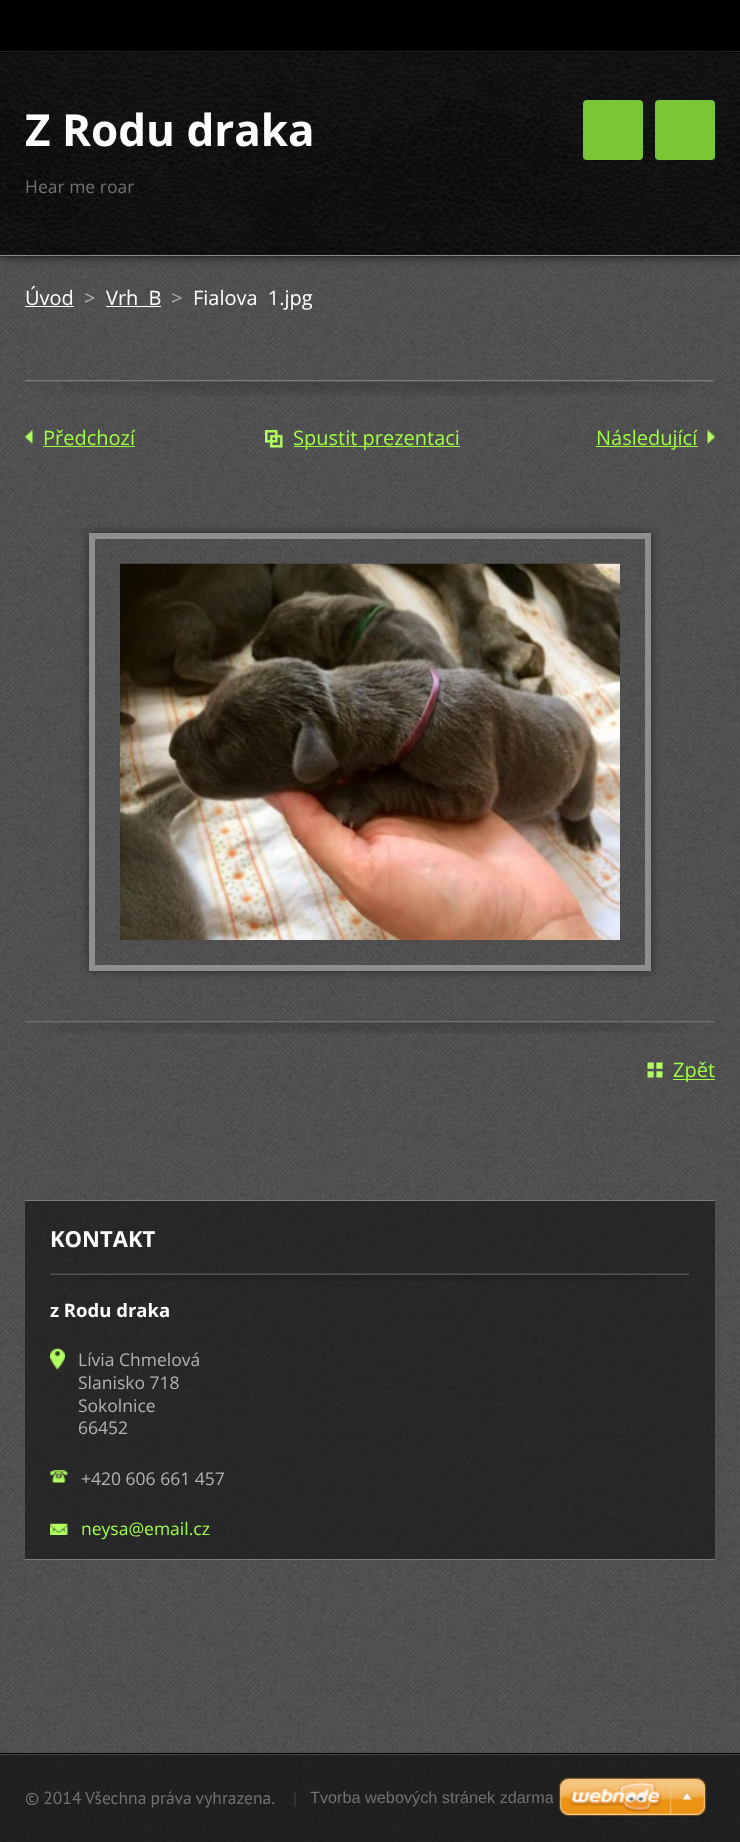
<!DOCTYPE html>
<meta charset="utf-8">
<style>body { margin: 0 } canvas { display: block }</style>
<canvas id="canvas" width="740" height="1842"></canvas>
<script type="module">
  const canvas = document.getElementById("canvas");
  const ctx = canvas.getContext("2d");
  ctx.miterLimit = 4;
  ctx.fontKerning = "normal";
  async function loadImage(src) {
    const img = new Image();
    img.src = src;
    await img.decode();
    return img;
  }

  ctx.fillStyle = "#ffffff";
  ctx.fillRect(0, 0, 740, 1842);
  ctx.drawImage(await loadImage("img1.png"), 0, 256, 740, 1586);
  ctx.fillStyle = "#000000";
  ctx.fillRect(0, 0, 740, 53);
  ctx.fillStyle = "#303030";
  ctx.fillRect(0, 51, 740, 1);
  ctx.fillStyle = "rgba(0, 0, 0, 0.7)";
  ctx.filter = "blur(6px)";
  ctx.beginPath();
  ctx.rect(0, 53, 740, 203);
  ctx.fill();
  ctx.filter = "none";
  ctx.drawImage(await loadImage("img2.png"), 0, 52, 740, 205);
  ctx.fillStyle = "#8a8a8a";
  ctx.fillRect(0, 255, 740, 1);
  ctx.font = "bold 44px Open Sans";
  ctx.fillStyle = "#ffffff";
  ctx.fillText("Z Rodu draka", 25, 146);
  ctx.font = "17.5px Open Sans";
  ctx.fillStyle = "#717171";
  ctx.fillText("Hear me roar", 25, 193);
  ctx.fillStyle = "#7bc635";
  ctx.beginPath();
  ctx.roundRect(583, 100, 60, 60, 4);
  ctx.fill();
  ctx.beginPath();
  ctx.roundRect(655, 100, 60, 60, 4);
  ctx.fill();
  ctx.font = "20px Open Sans";
  ctx.fillStyle = "#ffffff";
  ctx.fillText("Úvod", 25, 305);
  ctx.fillRect(25, 306, 49, 1);
  ctx.fillStyle = "#b3b3b3";
  ctx.fillText(">", 84, 305);
  ctx.wordSpacing = "5px";
  ctx.fillStyle = "#ffffff";
  ctx.fillText("Vrh B", 106, 305);
  ctx.fillRect(106, 306, 55, 1);
  ctx.wordSpacing = "0px";
  ctx.fillStyle = "#b3b3b3";
  ctx.fillText(">", 171, 305);
  ctx.wordSpacing = "5px";
  ctx.fillStyle = "#ffffff";
  ctx.fillText("Fialova 1.jpg", 193, 305);
  ctx.drawImage(await loadImage("img3.png"), 25, 380, 689, 16);
  ctx.drawImage(await loadImage("img4.png"), 25, 430, 8, 14);
  ctx.wordSpacing = "0px";
  ctx.fillStyle = "#9eff44";
  ctx.fillText("Předchozí", 43, 445);
  ctx.fillRect(43, 446, 92, 1);
  ctx.drawImage(await loadImage("img5.png"), 265, 430, 18, 18);
  ctx.fillRect(294, 446, 166, 1);
  ctx.fillText("Spustit prezentaci", 293, 445);
  ctx.drawImage(await loadImage("img6.png"), 707, 430, 8, 14);
  ctx.fillRect(596, 446, 102, 1);
  ctx.fillText("Následující", 596, 445);
  ctx.drawImage(await loadImage("img7.png"), 25, 1021, 689, 13);
  ctx.save();
  ctx.beginPath();
  ctx.moveTo(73, 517);
  ctx.lineTo(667, 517);
  ctx.lineTo(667, 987);
  ctx.lineTo(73, 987);
  ctx.closePath();
  ctx.moveTo(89, 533);
  ctx.lineTo(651, 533);
  ctx.lineTo(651, 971);
  ctx.lineTo(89, 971);
  ctx.closePath();
  ctx.clip("evenodd");
  ctx.fillStyle = "rgba(0, 0, 0, 0.5)";
  ctx.filter = "blur(5px)";
  ctx.beginPath();
  ctx.rect(89, 533, 562, 438);
  ctx.fill();
  ctx.filter = "none";
  ctx.restore();
  ctx.strokeStyle = "#8e8e8e";
  ctx.lineWidth = 6;
  ctx.strokeRect(92, 536, 556, 432);
  ctx.drawImage(await loadImage("img8.png"), 120, 563, 500, 377);
  ctx.drawImage(await loadImage("img9.png"), 647, 1062, 16, 16);
  ctx.fillRect(673, 1079, 42, 1);
  ctx.fillText("Zpět", 673, 1077);
  ctx.fillStyle = "rgba(0, 0, 0, 0.5)";
  ctx.fillRect(25, 1201, 690, 358);
  ctx.fillStyle = "#7c7c7c";
  ctx.fillRect(25, 1200, 690, 1);
  ctx.fillRect(25, 1559, 690, 1);
  ctx.drawImage(await loadImage("img10.png"), 50, 1273, 639, 8);
  ctx.font = "bold 22px Open Sans";
  ctx.fillStyle = "#ffffff";
  ctx.fillText("KONTAKT", 50, 1247);
  ctx.font = "bold 18.5px Open Sans";
  ctx.fillText("z Rodu draka", 50, 1317);
  ctx.drawImage(await loadImage("img11.png"), 50, 1348, 15, 22);
  ctx.font = "17.5px Open Sans";
  ctx.fillStyle = "#b3b3b3";
  ctx.fillText("Lívia Chmelová", 78, 1366);
  ctx.fillText("Slanisko 718", 78, 1389);
  ctx.fillText("Sokolnice", 78, 1412);
  ctx.fillText("66452", 78, 1434);
  ctx.drawImage(await loadImage("img12.png"), 50, 1470, 18, 13);
  ctx.fillText("+420 606 661 457", 81, 1485);
  ctx.drawImage(await loadImage("img13.png"), 50, 1523, 18, 12);
  ctx.fillStyle = "#9eff44";
  ctx.fillText("neysa@email.cz", 81, 1535);
  ctx.fillStyle = "#000000";
  ctx.fillRect(0, 1753, 740, 1);
  ctx.fillStyle = "rgba(0, 0, 0, 0.6)";
  ctx.fillRect(0, 1755, 740, 87);
  ctx.fillStyle = "#464646";
  ctx.fillRect(0, 1754, 740, 1);
  ctx.wordSpacing = "-0.5px";
  ctx.font = "17.5px PT Sans";
  ctx.fillStyle = "#717171";
  ctx.fillText("© 2014 Všechna práva vyhrazena.", 25, 1804);
  ctx.wordSpacing = "0px";
  ctx.fillStyle = "#3c3c3c";
  ctx.fillText("|", 293, 1804);
  ctx.font = "16.25px Liberation Sans";
  ctx.fillStyle = "#717171";
  ctx.fillText("Tvorba webových stránek zdarma", 310, 1803);
  ctx.drawImage(await loadImage("img14.png"), 558, 1777, 149, 40);
</script>
